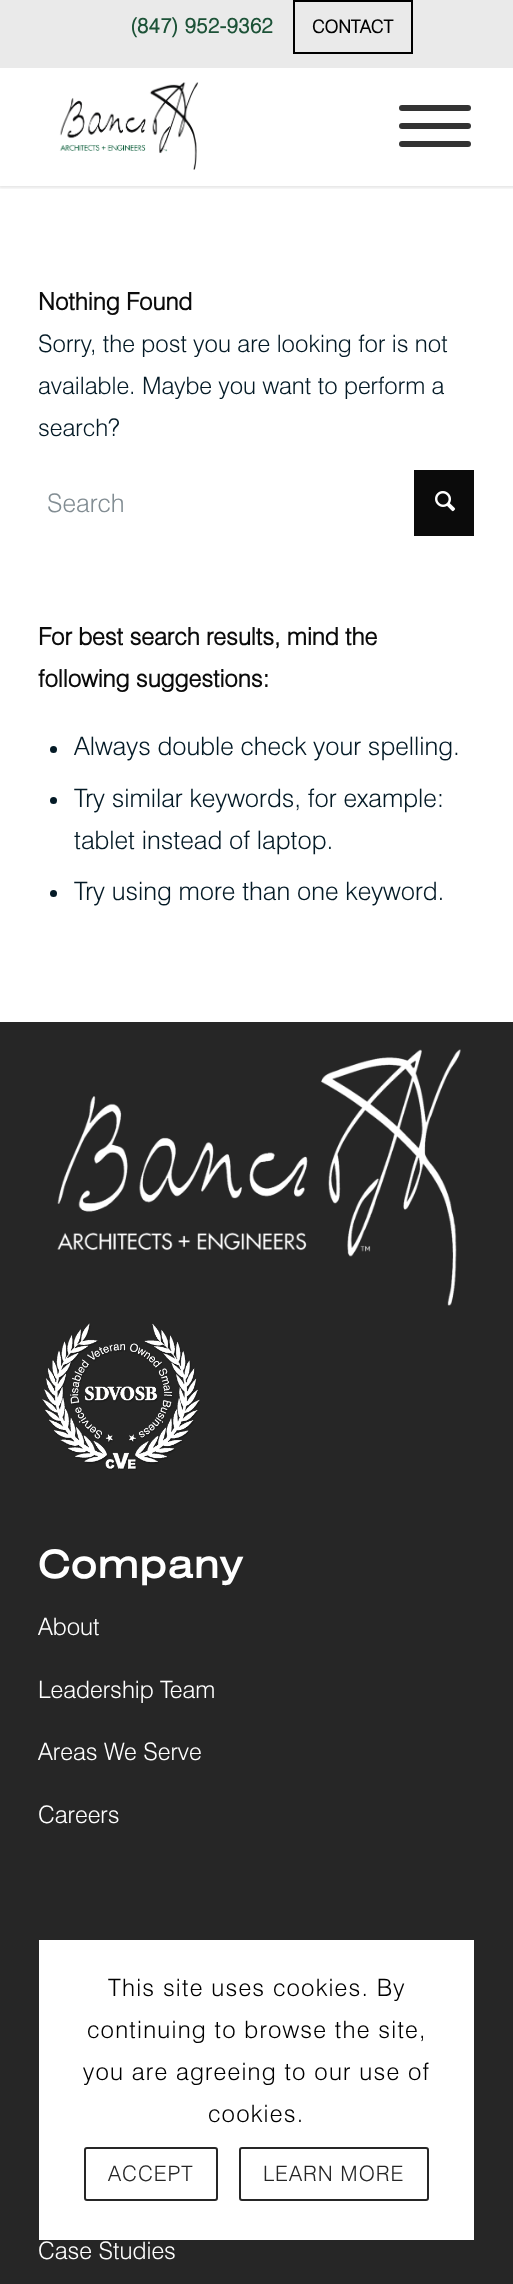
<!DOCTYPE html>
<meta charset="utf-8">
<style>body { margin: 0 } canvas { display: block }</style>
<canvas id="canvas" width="513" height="2284"></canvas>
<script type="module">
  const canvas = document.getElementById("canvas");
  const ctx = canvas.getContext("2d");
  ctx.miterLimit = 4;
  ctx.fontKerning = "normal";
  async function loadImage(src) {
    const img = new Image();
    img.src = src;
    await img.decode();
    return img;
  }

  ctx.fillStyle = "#ffffff";
  ctx.fillRect(0, 0, 513, 2284);
  ctx.save();
  ctx.beginPath();
  ctx.rect(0, 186, 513, 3);
  ctx.clip();
  ctx.fillStyle = "rgba(0, 0, 0, 0.1)";
  ctx.filter = "blur(1.5px)";
  ctx.beginPath();
  ctx.rect(-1, -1, 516, 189);
  ctx.fill();
  ctx.filter = "none";
  ctx.restore();
  ctx.fillStyle = "#eaeaea";
  ctx.fillRect(0, 0, 513, 68);
  ctx.letterSpacing = "0.4px";
  ctx.font = "bold 21px 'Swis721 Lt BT'";
  ctx.fillStyle = "#1c5237";
  ctx.fillText("(847) 952-9362", 130, 33);
  ctx.strokeStyle = "#000000";
  ctx.lineWidth = 2;
  ctx.strokeRect(294, 1, 118, 52);
  ctx.letterSpacing = "0px";
  ctx.font = "bold 18px 'Swis721 Lt BT'";
  ctx.fillStyle = "#000000";
  ctx.fillText("CONTACT", 312, 33);
  ctx.drawImage(await loadImage("img1.png"), 59, 82, 140, 88);
  ctx.fillStyle = "#333333";
  ctx.beginPath();
  ctx.roundRect(399, 105, 72, 6, 3);
  ctx.fill();
  ctx.beginPath();
  ctx.roundRect(399, 123, 72, 6, 3);
  ctx.fill();
  ctx.beginPath();
  ctx.roundRect(399, 141, 72, 6, 3);
  ctx.fill();
  ctx.font = "bold 24px 'Swis721 Lt BT'";
  ctx.fillStyle = "#0b0b0b";
  ctx.fillText("Nothing Found", 38, 310);
  ctx.font = "300 24px 'Swis721 Lt BT'";
  ctx.fillStyle = "#041a26";
  ctx.fillText("Sorry, the post you are looking for is not", 38, 352);
  ctx.fillText("available. Maybe you want to perform a", 38, 394);
  ctx.fillText("search?", 38, 436);
  ctx.font = "300 25.5px 'Swis721 Lt BT'";
  ctx.fillStyle = "#828d93";
  ctx.fillText("Search", 47, 512);
  ctx.fillStyle = "#0b0b0b";
  ctx.fillRect(414, 470, 60, 66);
  ctx.drawImage(await loadImage("img2.png"), 435, 491, 21, 21);
  ctx.font = "bold 24px 'Swis721 Lt BT'";
  ctx.fillText("For best search results, mind the", 38, 645);
  ctx.fillText("following suggestions:", 38, 687);
  ctx.fillStyle = "#041a26";
  ctx.beginPath();
  ctx.arc(53.5, 749.5, 3.5, 0, Math.PI * 2);
  ctx.fill();
  ctx.font = "300 25.5px 'Swis721 Lt BT'";
  ctx.fillText("Always double check your spelling.", 74, 755);
  ctx.beginPath();
  ctx.arc(53.5, 800.5, 3.5, 0, Math.PI * 2);
  ctx.fill();
  ctx.fillText("Try similar keywords, for example:", 74, 807);
  ctx.fillText("tablet instead of laptop.", 74, 849);
  ctx.beginPath();
  ctx.arc(53.5, 893.5, 3.5, 0, Math.PI * 2);
  ctx.fill();
  ctx.fillText("Try using more than one keyword.", 74, 900);
  ctx.fillStyle = "#262626";
  ctx.fillRect(0, 1022, 513, 1262);
  ctx.drawImage(await loadImage("img3.png"), 57, 1049, 404, 257);
  ctx.drawImage(await loadImage("img4.png"), 42, 1323, 158, 147);
  ctx.letterSpacing = "1.5px";
  ctx.font = "bold 37.5px 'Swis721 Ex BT'";
  ctx.fillStyle = "#ffffff";
  ctx.fillText("Company", 38, 1578);
  ctx.letterSpacing = "0px";
  ctx.font = "300 24px 'Swis721 Lt BT'";
  ctx.fillText("About", 38, 1635);
  ctx.fillText("Leadership Team", 38, 1698);
  ctx.fillText("Areas We Serve", 38, 1760);
  ctx.fillText("Careers", 38, 1823);
  ctx.fillText("Case Studies", 38, 2259);
  ctx.fillRect(39, 1940, 435, 300);
  ctx.letterSpacing = "1.2px";
  ctx.fillStyle = "#000000";
  ctx.fillText("This site uses cookies. By", 108, 1996);
  ctx.fillText("continuing to browse the site,", 87, 2038);
  ctx.fillText("you are agreeing to our use of", 83, 2080);
  ctx.fillText("cookies.", 208, 2122);
  ctx.beginPath();
  ctx.roundRect(85, 2148, 132, 52, 2);
  ctx.strokeStyle = "#262626";
  ctx.stroke();
  ctx.letterSpacing = "1px";
  ctx.font = "300 21.25px 'Swis721 Lt BT'";
  ctx.fillStyle = "#262626";
  ctx.fillText("ACCEPT", 108, 2181);
  ctx.beginPath();
  ctx.roundRect(240, 2148, 188, 52, 2);
  ctx.stroke();
  ctx.fillText("LEARN MORE", 263, 2181);
</script>
